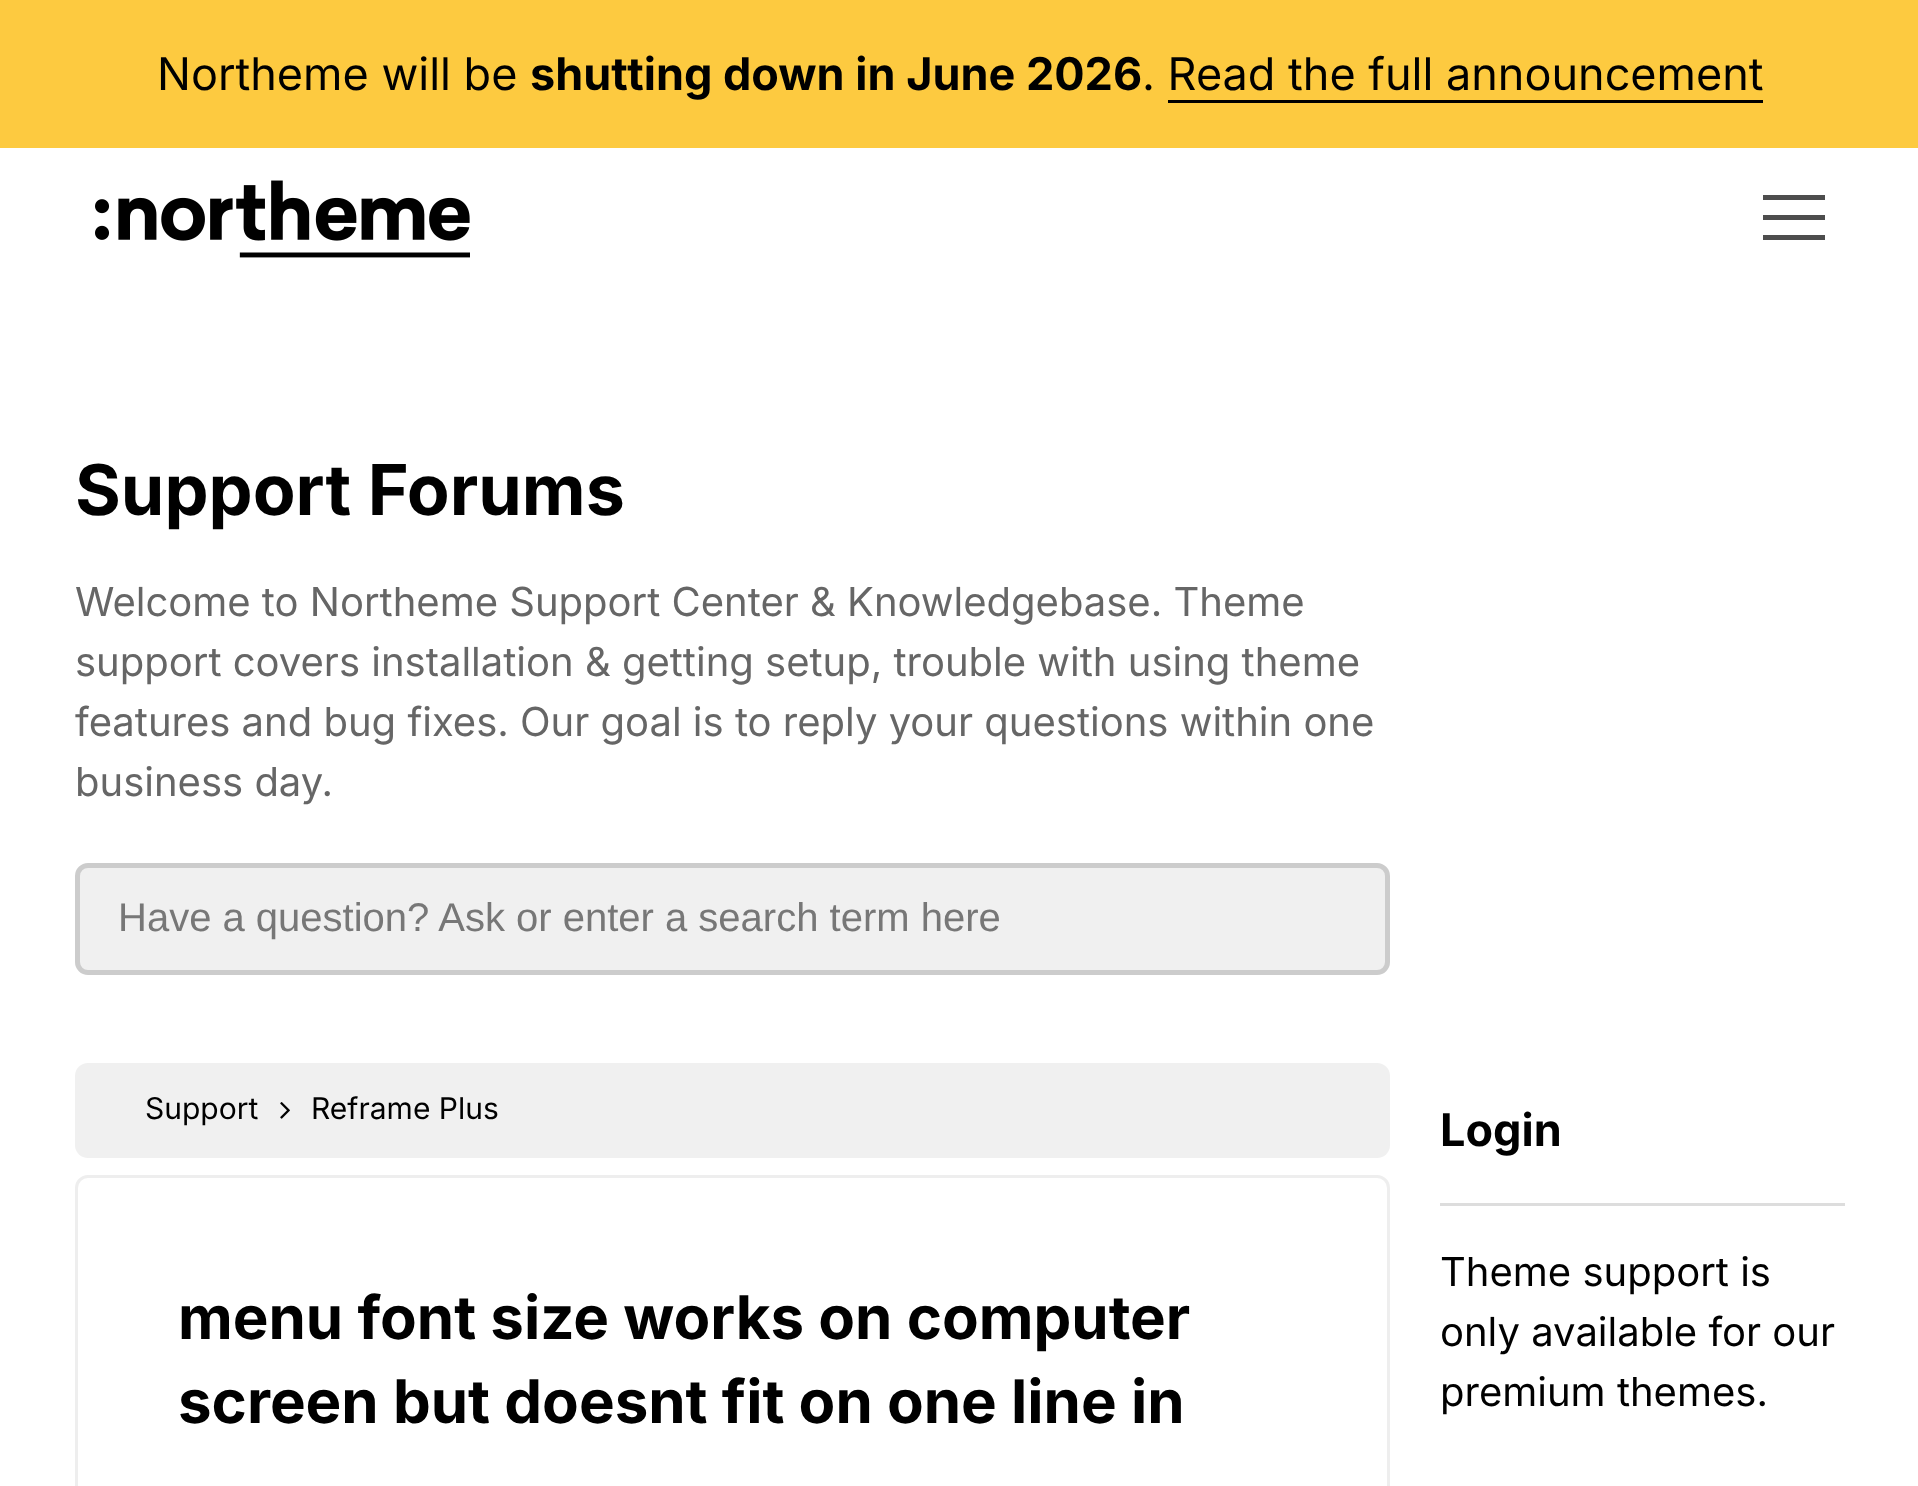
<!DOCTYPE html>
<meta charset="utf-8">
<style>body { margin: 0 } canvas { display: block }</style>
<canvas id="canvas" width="1918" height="1486"></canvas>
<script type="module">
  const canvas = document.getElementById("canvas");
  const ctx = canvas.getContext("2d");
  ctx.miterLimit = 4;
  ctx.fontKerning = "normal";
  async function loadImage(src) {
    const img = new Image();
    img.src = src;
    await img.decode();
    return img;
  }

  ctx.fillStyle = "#ffffff";
  ctx.fillRect(0, 0, 1918, 1486);
  ctx.fillStyle = "#fdca40";
  ctx.fillRect(0, 0, 1918, 148);
  ctx.font = "45px Inter";
  ctx.fillStyle = "#000000";
  ctx.fillText("Northeme will be", 157, 90);
  ctx.font = "bold 45px Inter";
  ctx.fillText("shutting down in June 2026", 530, 90);
  ctx.font = "45px Inter";
  ctx.fillText(". Read the full announcement", 1142, 90);
  ctx.fillRect(1168, 100, 595, 3);
  ctx.drawImage(await loadImage("img1.png"), 95, 180, 375, 78);
  ctx.fillStyle = "#4d4d4d";
  ctx.fillRect(1763, 195, 62, 5);
  ctx.fillRect(1763, 215, 62, 5);
  ctx.fillRect(1763, 235, 62, 5);
  ctx.font = "bold 70px Inter";
  ctx.fillStyle = "#000000";
  ctx.fillText("Support Forums", 75, 515);
  ctx.font = "40px Inter";
  ctx.fillStyle = "#666666";
  ctx.fillText("Welcome to Northeme Support Center & Knowledgebase. Theme", 75, 616);
  ctx.fillText("support covers installation & getting setup, trouble with using theme", 75, 676);
  ctx.fillText("features and bug fixes. Our goal is to reply your questions within one", 75, 736);
  ctx.fillText("business day.", 75, 796);
  ctx.fillStyle = "#f0f0f0";
  ctx.beginPath();
  ctx.roundRect(77.5, 865.5, 1310, 107, 10.5);
  ctx.fill();
  ctx.strokeStyle = "#cccccc";
  ctx.lineWidth = 5;
  ctx.stroke();
  ctx.font = "40px Liberation Sans";
  ctx.fillStyle = "#777777";
  ctx.fillText("Have a question? Ask or enter a search term here", 118, 931);
  ctx.fillStyle = "#f0f0f0";
  ctx.beginPath();
  ctx.roundRect(75, 1063, 1315, 95, 13);
  ctx.fill();
  ctx.font = "30px Inter";
  ctx.fillStyle = "#000000";
  ctx.fillText("Support", 145, 1119);
  ctx.drawImage(await loadImage("img2.png"), 280, 1102, 10, 17);
  ctx.fillText("Reframe Plus", 311, 1119);
  ctx.beginPath();
  ctx.roundRect(76.5, 1176.5, 1312, 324, 11.5);
  ctx.strokeStyle = "#eeeeee";
  ctx.lineWidth = 3;
  ctx.stroke();
  ctx.font = "bold 60px Inter";
  ctx.fillText("menu font size works on computer", 178, 1339);
  ctx.fillText("screen but doesnt fit on one line in", 178, 1423);
  ctx.fillStyle = "#dddddd";
  ctx.fillRect(1440, 1203, 405, 3);
  ctx.font = "bold 45px Inter";
  ctx.fillStyle = "#000000";
  ctx.fillText("Login", 1440, 1146);
  ctx.font = "40px Inter";
  ctx.fillText("Theme support is", 1440, 1286);
  ctx.fillText("only available for our", 1440, 1346);
  ctx.fillText("premium themes.", 1440, 1406);
</script>
